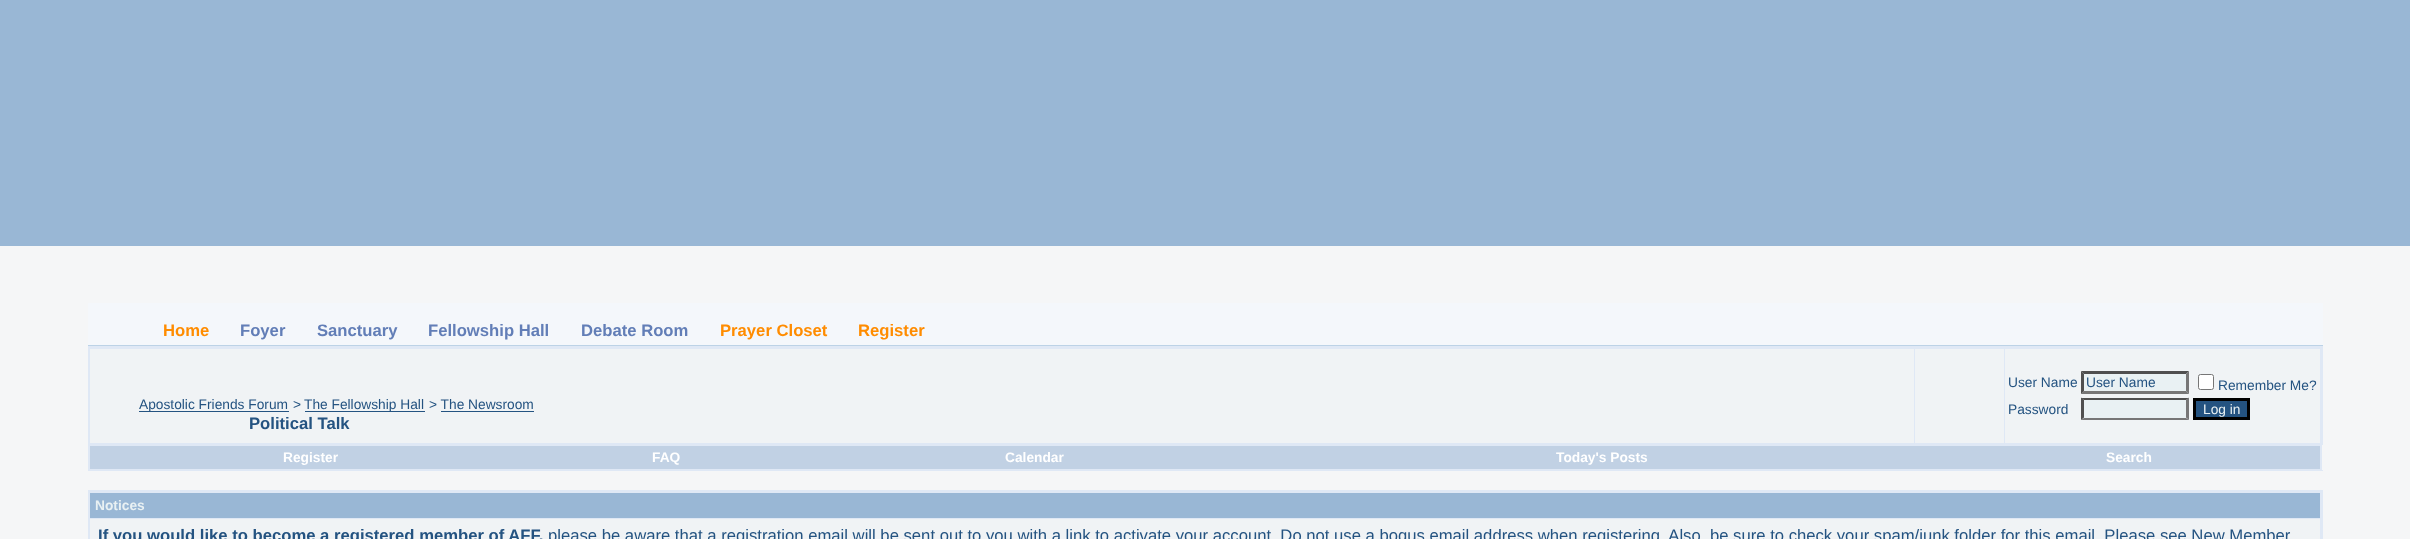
<!DOCTYPE html>
<meta charset="utf-8">
<style>body { margin: 0 } canvas { display: block }</style>
<canvas id="canvas" width="2410" height="539"></canvas>
<script type="module">
  const canvas = document.getElementById("canvas");
  const ctx = canvas.getContext("2d");
  ctx.miterLimit = 4;
  ctx.fontKerning = "normal";

  ctx.fillStyle = "#99b7d5";
  ctx.fillRect(0, 0, 2410, 539);
  ctx.fillStyle = "#f5f6f7";
  ctx.fillRect(0, 246, 2410, 57);
  ctx.fillRect(0, 303, 2410, 236);
  ctx.fillStyle = "#f4f7fb";
  ctx.fillRect(88, 303, 2235, 42);
  ctx.fillStyle = "#bcd2e6";
  ctx.fillRect(88, 345, 2235, 1);
  ctx.font = "bold 16.67px Liberation Sans";
  ctx.fillStyle = "#ff8c00";
  ctx.fillText("Home", 163, 336);
  ctx.fillStyle = "#627eb7";
  ctx.fillText("Foyer", 240, 336);
  ctx.fillText("Sanctuary", 317, 336);
  ctx.fillText("Fellowship Hall", 428, 336);
  ctx.fillText("Debate Room", 581, 336);
  ctx.fillStyle = "#ff8c00";
  ctx.fillText("Prayer Closet", 720, 336);
  ctx.fillText("Register", 858, 336);
  ctx.fillStyle = "#dfe8f5";
  ctx.fillRect(88, 346, 2235, 99);
  ctx.fillStyle = "#f0f3f5";
  ctx.fillRect(90, 349, 1824, 94);
  ctx.fillStyle = "#245381";
  ctx.fillRect(139, 411, 150, 1);
  ctx.font = "13.75px Liberation Sans";
  ctx.fillText("Apostolic Friends Forum", 139, 409);
  ctx.fillText(">", 293, 409);
  ctx.fillRect(305, 411, 120, 1);
  ctx.fillText("The Fellowship Hall", 304, 409);
  ctx.fillText("> The Newsroom", 429, 409);
  ctx.fillRect(441, 411, 93, 1);
  ctx.font = "bold 16.67px Liberation Sans";
  ctx.fillText("Political Talk", 249, 429);
  ctx.fillStyle = "#f0f3f5";
  ctx.fillRect(1915, 349, 89, 94);
  ctx.fillRect(2005, 349, 315, 94);
  ctx.font = "13.75px Liberation Sans";
  ctx.fillStyle = "#245381";
  ctx.fillText("User Name", 2008, 387);
  ctx.fillStyle = "#e9f1f3";
  ctx.fillRect(2081, 371, 108, 23);
  ctx.fillStyle = "#4f4f4f";
  ctx.beginPath();
  ctx.moveTo(2081, 371);
  ctx.lineTo(2189, 371);
  ctx.lineTo(2186, 374);
  ctx.lineTo(2084, 374);
  ctx.closePath();
  ctx.fill();
  ctx.fillStyle = "#767676";
  ctx.beginPath();
  ctx.moveTo(2189, 371);
  ctx.lineTo(2189, 394);
  ctx.lineTo(2186, 391);
  ctx.lineTo(2186, 374);
  ctx.closePath();
  ctx.fill();
  ctx.beginPath();
  ctx.moveTo(2189, 394);
  ctx.lineTo(2081, 394);
  ctx.lineTo(2084, 391);
  ctx.lineTo(2186, 391);
  ctx.closePath();
  ctx.fill();
  ctx.fillStyle = "#4f4f4f";
  ctx.beginPath();
  ctx.moveTo(2081, 394);
  ctx.lineTo(2081, 371);
  ctx.lineTo(2084, 374);
  ctx.lineTo(2084, 391);
  ctx.closePath();
  ctx.fill();
  ctx.fillStyle = "#245381";
  ctx.fillText("User Name", 2086, 387);
  ctx.fillStyle = "#ffffff";
  ctx.beginPath();
  ctx.roundRect(2198.5, 374.5, 15, 15, 2);
  ctx.fill();
  ctx.strokeStyle = "#767676";
  ctx.stroke();
  ctx.fillStyle = "#245381";
  ctx.fillText("Remember Me?", 2218, 390);
  ctx.fillText("Password", 2008, 414);
  ctx.fillStyle = "#e9f1f3";
  ctx.fillRect(2081, 398, 108, 22);
  ctx.fillStyle = "#4f4f4f";
  ctx.beginPath();
  ctx.moveTo(2081, 398);
  ctx.lineTo(2189, 398);
  ctx.lineTo(2186, 400);
  ctx.lineTo(2084, 400);
  ctx.closePath();
  ctx.fill();
  ctx.fillStyle = "#767676";
  ctx.beginPath();
  ctx.moveTo(2189, 397.5);
  ctx.lineTo(2189, 420);
  ctx.lineTo(2186, 417.5);
  ctx.lineTo(2186, 400);
  ctx.closePath();
  ctx.fill();
  ctx.beginPath();
  ctx.moveTo(2189, 420);
  ctx.lineTo(2081, 420);
  ctx.lineTo(2084, 418);
  ctx.lineTo(2186, 418);
  ctx.closePath();
  ctx.fill();
  ctx.fillStyle = "#4f4f4f";
  ctx.beginPath();
  ctx.moveTo(2081, 420);
  ctx.lineTo(2081, 397.5);
  ctx.lineTo(2084, 400);
  ctx.lineTo(2084, 417.5);
  ctx.closePath();
  ctx.fill();
  ctx.fillStyle = "#245381";
  ctx.beginPath();
  ctx.rect(2194.5, 399.5, 54, 19);
  ctx.fill();
  ctx.strokeStyle = "#000000";
  ctx.lineWidth = 3;
  ctx.stroke();
  ctx.fillStyle = "#e9f1f3";
  ctx.fillText("Log in", 2203, 414);
  ctx.fillStyle = "#dfe8f5";
  ctx.fillRect(89, 445, 2232, 25);
  ctx.fillRect(2321, 445, 1, 26);
  ctx.fillRect(88, 470, 2235, 1);
  ctx.fillRect(88, 445, 1, 26);
  ctx.fillStyle = "#c1d1e4";
  ctx.fillRect(90, 446, 2230, 23);
  ctx.font = "bold 13.75px Liberation Sans";
  ctx.fillStyle = "#ffffff";
  ctx.fillText("Register", 283, 462);
  ctx.fillText("FAQ", 652, 462);
  ctx.fillText("Calendar", 1005, 462);
  ctx.fillText("Today's Posts", 1556, 462);
  ctx.fillText("Search", 2106, 462);
  ctx.fillStyle = "#dfe8f5";
  ctx.fillRect(88, 490, 2235, 49);
  ctx.fillStyle = "#99b7d5";
  ctx.fillRect(90, 493, 2230, 25);
  ctx.fillStyle = "#e9f1f3";
  ctx.fillText("Notices", 95, 510);
  ctx.fillStyle = "#f0f3f5";
  ctx.fillRect(90, 519, 2230, 20);
  ctx.font = "bold 16.67px Liberation Sans";
  ctx.fillStyle = "#245381";
  ctx.fillText("If you would like to become a registered member of AFF,", 98, 541);
  ctx.font = "16.67px Liberation Sans";
  ctx.fillText("please be aware that a registration email will be sent out to you with a link to activate your account. Do not use a bogus email address when registering. Also, be sure to check your spam/junk folder for this email. Please see New Member", 548, 541);
</script>
